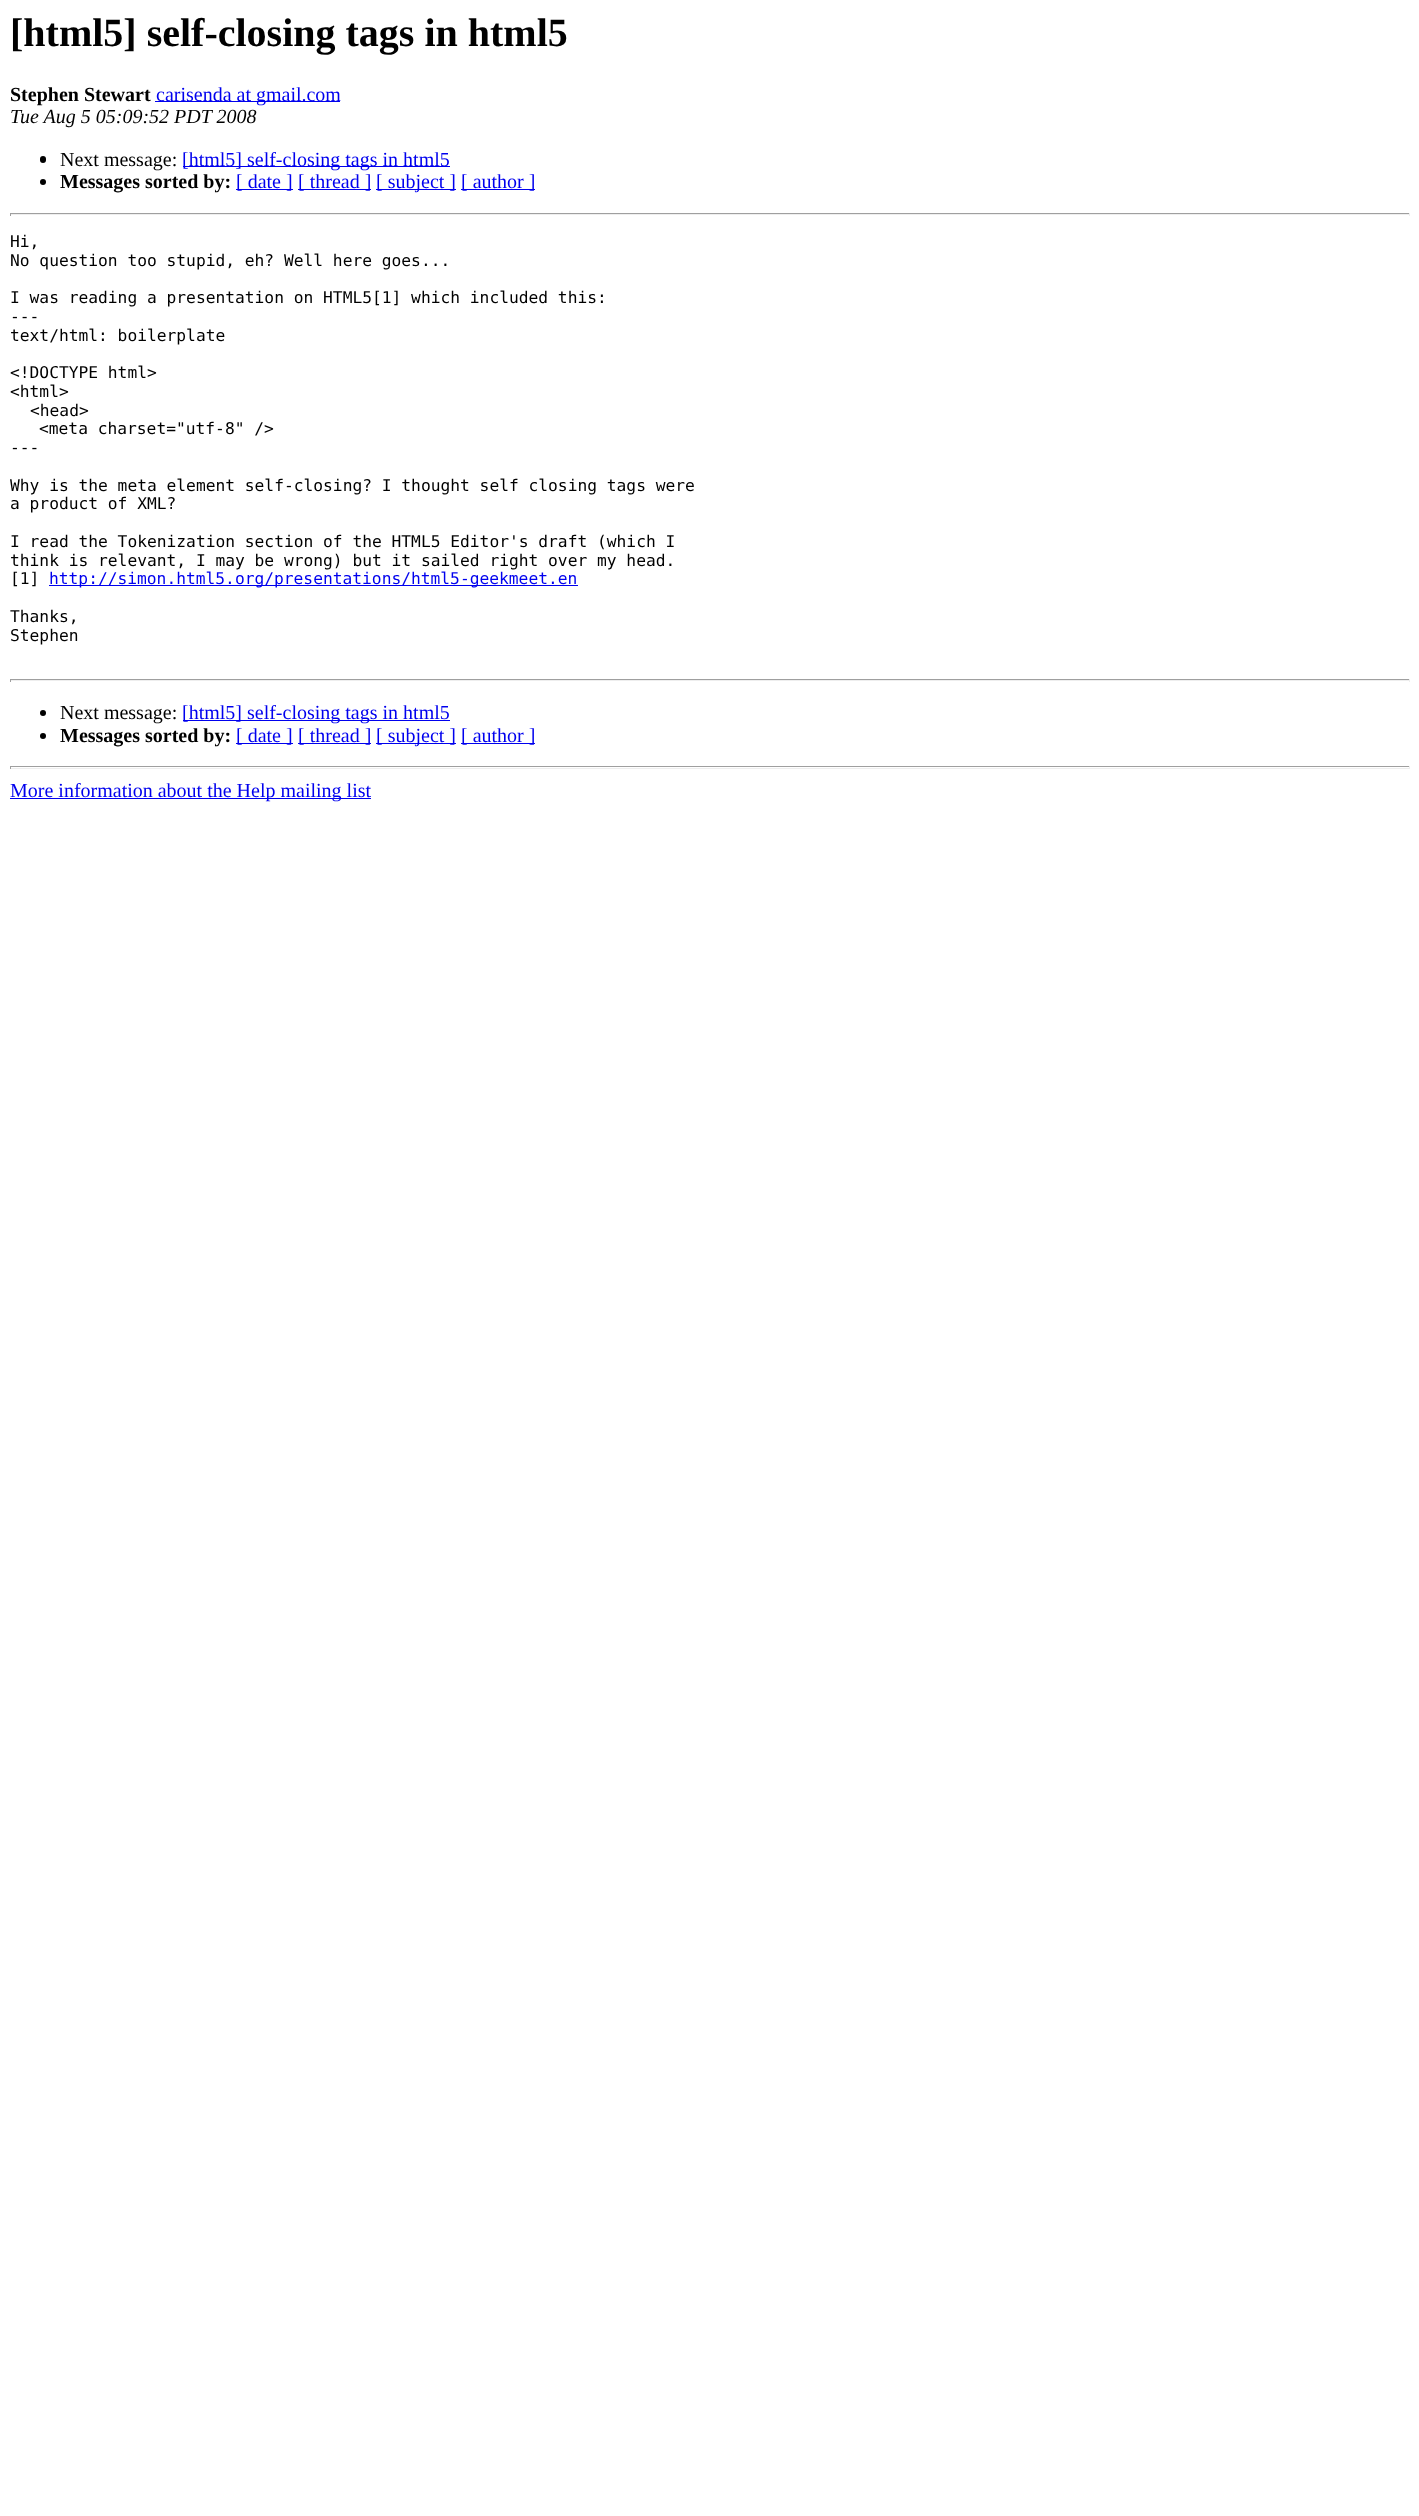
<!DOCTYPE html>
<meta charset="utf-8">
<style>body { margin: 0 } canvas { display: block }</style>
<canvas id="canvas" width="1419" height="2516"></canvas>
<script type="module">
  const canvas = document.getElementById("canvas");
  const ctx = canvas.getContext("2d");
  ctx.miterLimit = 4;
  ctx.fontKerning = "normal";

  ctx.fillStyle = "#ffffff";
  ctx.fillRect(0, 0, 1419, 2516);
  ctx.font = "bold 40px Liberation Serif";
  ctx.fillStyle = "#000000";
  ctx.fillText("[html5] self-closing tags in html5", 10, 46);
  ctx.font = "bold 20px Liberation Serif";
  ctx.fillText("Stephen Stewart", 10, 101);
  ctx.fillStyle = "#0000ee";
  ctx.fillRect(155, 101, 185, 1);
  ctx.font = "20px Liberation Serif";
  ctx.fillText("carisenda at gmail.com", 156, 101);
  ctx.font = "italic 20px Liberation Serif";
  ctx.fillStyle = "#000000";
  ctx.fillText("Tue Aug 5 05:09:52 PDT 2008", 10, 123);
  ctx.beginPath();
  ctx.roundRect(40, 156, 6, 7, 3);
  ctx.fill();
  ctx.font = "20px Liberation Serif";
  ctx.fillText("Next message:", 60, 166);
  ctx.fillStyle = "#0000ee";
  ctx.fillRect(183, 166, 267, 1);
  ctx.fillText("[html5] self-closing tags in html5", 182, 166);
  ctx.fillStyle = "#000000";
  ctx.beginPath();
  ctx.arc(43, 182, 3, 0, Math.PI * 2);
  ctx.fill();
  ctx.font = "bold 20px Liberation Serif";
  ctx.fillText("Messages sorted by:", 60, 188);
  ctx.fillStyle = "#0000ee";
  ctx.fillRect(236, 189, 57, 1);
  ctx.font = "20px Liberation Serif";
  ctx.fillText("[ date ]", 236, 188);
  ctx.fillRect(298, 189, 73, 1);
  ctx.fillText("[ thread ]", 298, 188);
  ctx.fillRect(376, 189, 80, 1);
  ctx.fillText("[ subject ]", 376, 188);
  ctx.fillRect(461, 189, 74, 1);
  ctx.fillText("[ author ]", 461, 188);
  ctx.fillStyle = "#9f9f9f";
  ctx.fillRect(10, 213, 1400, 1);
  ctx.fillStyle = "#eeeeee";
  ctx.fillRect(1409, 213, 1, 3);
  ctx.fillRect(10, 214, 1400, 1);
  ctx.fillStyle = "#9f9f9f";
  ctx.fillRect(10, 213, 1, 3);
  ctx.font = "16.25px DejaVu Sans Mono";
  ctx.fillStyle = "#000000";
  ctx.fillText("Hi,", 10, 247);
  ctx.fillText("No question too stupid, eh? Well here goes...", 10, 266);
  ctx.fillText("I was reading a presentation on HTML5[1] which included this:", 10, 303);
  ctx.fillText("---", 10, 322);
  ctx.fillText("text/html: boilerplate", 10, 341);
  ctx.fillText("<!DOCTYPE html>", 10, 378);
  ctx.fillText("<html>", 10, 397);
  ctx.fillText("<head>", 30, 416);
  ctx.fillText("<meta charset=\"utf-8\" />", 39, 434);
  ctx.fillText("---", 10, 453);
  ctx.fillText("Why is the meta element self-closing? I thought self closing tags were", 10, 491);
  ctx.fillText("a product of XML?", 10, 509);
  ctx.fillText("I read the Tokenization section of the HTML5 Editor's draft (which I", 10, 547);
  ctx.fillText("think is relevant, I may be wrong) but it sailed right over my head.", 10, 566);
  ctx.fillText("[1]", 10, 584);
  ctx.fillStyle = "#0000ee";
  ctx.fillRect(49, 585, 529, 1);
  ctx.fillText("http://simon.html5.org/presentations/html5-geekmeet.en", 49, 584);
  ctx.fillStyle = "#000000";
  ctx.fillText("Thanks,", 10, 622);
  ctx.fillText("Stephen", 10, 641);
  ctx.fillStyle = "#9f9f9f";
  ctx.fillRect(10, 679, 1400, 1);
  ctx.fillStyle = "#eeeeee";
  ctx.fillRect(1409, 679, 1, 3);
  ctx.fillRect(10, 680, 1400, 1);
  ctx.fillStyle = "#9f9f9f";
  ctx.fillRect(10, 679, 1, 3);
  ctx.fillStyle = "#000000";
  ctx.beginPath();
  ctx.arc(43, 713, 3, 0, Math.PI * 2);
  ctx.fill();
  ctx.font = "20px Liberation Serif";
  ctx.fillText("Next message:", 60, 719);
  ctx.fillStyle = "#0000ee";
  ctx.fillRect(183, 720, 267, 1);
  ctx.fillText("[html5] self-closing tags in html5", 182, 719);
  ctx.fillStyle = "#000000";
  ctx.beginPath();
  ctx.arc(43, 736, 3, 0, Math.PI * 2);
  ctx.fill();
  ctx.font = "bold 20px Liberation Serif";
  ctx.fillText("Messages sorted by:", 60, 742);
  ctx.fillStyle = "#0000ee";
  ctx.fillRect(236, 743, 57, 1);
  ctx.font = "20px Liberation Serif";
  ctx.fillText("[ date ]", 236, 742);
  ctx.fillRect(298, 743, 73, 1);
  ctx.fillText("[ thread ]", 298, 742);
  ctx.fillRect(376, 743, 80, 1);
  ctx.fillText("[ subject ]", 376, 742);
  ctx.fillRect(461, 743, 74, 1);
  ctx.fillText("[ author ]", 461, 742);
  ctx.fillStyle = "#9f9f9f";
  ctx.fillRect(10, 766, 1400, 1);
  ctx.fillStyle = "#eeeeee";
  ctx.fillRect(1409, 766, 1, 3);
  ctx.fillRect(10, 768, 1400, 1);
  ctx.fillStyle = "#9f9f9f";
  ctx.fillRect(10, 766, 1, 3);
  ctx.fillStyle = "#0000ee";
  ctx.fillRect(10, 798, 361, 1);
  ctx.fillText("More information about the Help mailing list", 10, 797);
</script>
